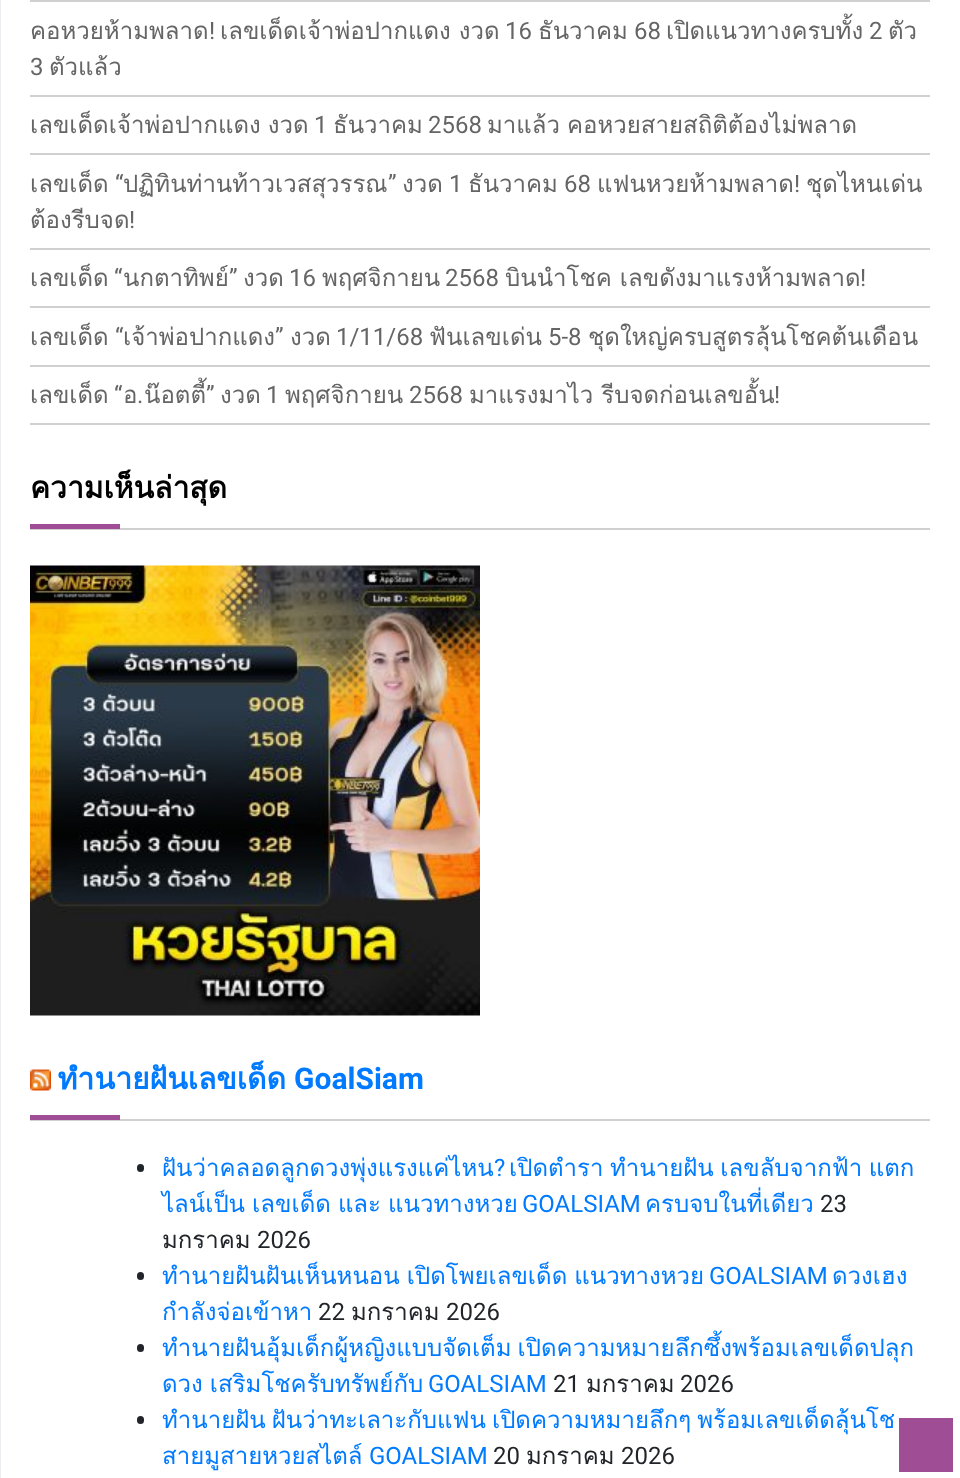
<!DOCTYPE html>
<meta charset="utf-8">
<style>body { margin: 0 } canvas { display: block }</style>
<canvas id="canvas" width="960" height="1478"></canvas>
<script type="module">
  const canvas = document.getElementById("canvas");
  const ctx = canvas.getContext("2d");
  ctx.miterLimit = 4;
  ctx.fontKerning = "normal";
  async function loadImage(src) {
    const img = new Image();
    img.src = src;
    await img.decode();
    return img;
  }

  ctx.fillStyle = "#ffffff";
  ctx.fillRect(0, 0, 960, 1478);
  ctx.strokeStyle = "#ebedf0";
  ctx.lineWidth = 2;
  ctx.strokeRect(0, -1, 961, 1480);
  ctx.fillStyle = "#d0d0d0";
  ctx.fillRect(30, 0, 900, 2);
  ctx.fillRect(30, 95, 900, 2);
  ctx.font = "24px Loma";
  ctx.fillStyle = "#656565";
  ctx.fillText("คอหวยห้ามพลาด", 30, 39);
  ctx.font = "24px Roboto";
  ctx.fillText("!", 209, 39);
  ctx.font = "24px Loma";
  ctx.fillText("เลขเด็ดเจ้าพ่อปากแดง งวด", 220, 39);
  ctx.font = "24px Roboto";
  ctx.fillText("16", 505, 39);
  ctx.font = "24px Loma";
  ctx.fillText("ธันวาคม", 538, 39);
  ctx.font = "24px Roboto";
  ctx.fillText("68", 634, 39);
  ctx.font = "24px Loma";
  ctx.fillText("เปิดแนวทางครบทั้ง", 666, 39);
  ctx.font = "24px Roboto";
  ctx.fillText("2", 869, 39);
  ctx.font = "24px Loma";
  ctx.fillText("ตัว", 888, 39);
  ctx.font = "24px Roboto";
  ctx.fillText("3", 30, 75);
  ctx.font = "24px Loma";
  ctx.fillText("ตัวแล้ว", 49, 75);
  ctx.fillStyle = "#d0d0d0";
  ctx.fillRect(30, 153, 900, 2);
  ctx.wordSpacing = "-1px";
  ctx.fillStyle = "#656565";
  ctx.fillText("เลขเด็ดเจ้าพ่อปากแดง งวด", 30, 133);
  ctx.wordSpacing = "0px";
  ctx.font = "24px Roboto";
  ctx.fillText("1", 314, 133);
  ctx.font = "24px Loma";
  ctx.fillText("ธันวาคม", 333, 133);
  ctx.font = "24px Roboto";
  ctx.fillText("2568", 428, 133);
  ctx.wordSpacing = "-1px";
  ctx.font = "24px Loma";
  ctx.fillText("มาแล้ว คอหวยสายสถิติต้องไม่พลาด", 487, 133);
  ctx.fillStyle = "#d0d0d0";
  ctx.fillRect(30, 248, 900, 2);
  ctx.wordSpacing = "0px";
  ctx.fillStyle = "#656565";
  ctx.fillText("เลขเด็ด", 30, 192);
  ctx.font = "24px Roboto";
  ctx.fillText("“", 115, 192);
  ctx.font = "24px Loma";
  ctx.fillText("ปฏิทินท่านท้าวเวสสุวรรณ", 123, 192);
  ctx.font = "24px Roboto";
  ctx.fillText("”", 388, 192);
  ctx.font = "24px Loma";
  ctx.fillText("งวด", 402, 192);
  ctx.font = "24px Roboto";
  ctx.fillText("1", 449, 192);
  ctx.font = "24px Loma";
  ctx.fillText("ธันวาคม", 468, 192);
  ctx.font = "24px Roboto";
  ctx.fillText("68", 564, 192);
  ctx.font = "24px Loma";
  ctx.fillText("แฟนหวยห้ามพลาด", 597, 192);
  ctx.font = "24px Roboto";
  ctx.fillText("!", 794, 192);
  ctx.font = "24px Loma";
  ctx.fillText("ชุดไหนเด่น", 806, 192);
  ctx.fillText("ต้องรีบจด", 30, 228);
  ctx.font = "24px Roboto";
  ctx.fillText("!", 129, 228);
  ctx.fillStyle = "#d0d0d0";
  ctx.fillRect(30, 306, 900, 2);
  ctx.font = "24px Loma";
  ctx.fillStyle = "#656565";
  ctx.fillText("เลขเด็ด", 30, 286);
  ctx.font = "24px Roboto";
  ctx.fillText("“", 114, 286);
  ctx.font = "24px Loma";
  ctx.fillText("นกตาทิพย์", 123, 286);
  ctx.font = "24px Roboto";
  ctx.fillText("”", 229, 286);
  ctx.font = "24px Loma";
  ctx.fillText("งวด", 243, 286);
  ctx.font = "24px Roboto";
  ctx.fillText("16", 289, 286);
  ctx.font = "24px Loma";
  ctx.fillText("พฤศจิกายน", 322, 286);
  ctx.font = "24px Roboto";
  ctx.fillText("2568", 445, 286);
  ctx.font = "24px Loma";
  ctx.fillText("บินนำโชค เลขดังมาแรงห้ามพลาด", 505, 286);
  ctx.font = "24px Roboto";
  ctx.fillText("!", 860, 286);
  ctx.fillStyle = "#d0d0d0";
  ctx.fillRect(30, 365, 900, 2);
  ctx.font = "24px Loma";
  ctx.fillStyle = "#656565";
  ctx.fillText("เลขเด็ด", 30, 345);
  ctx.font = "24px Roboto";
  ctx.fillText("“", 115, 345);
  ctx.font = "24px Loma";
  ctx.fillText("เจ้าพ่อปากแดง", 123, 345);
  ctx.font = "24px Roboto";
  ctx.fillText("”", 275, 345);
  ctx.font = "24px Loma";
  ctx.fillText("งวด", 290, 345);
  ctx.font = "24px Roboto";
  ctx.fillText("1/11/68", 336, 345);
  ctx.font = "24px Loma";
  ctx.fillText("ฟันเลขเด่น", 429, 345);
  ctx.font = "24px Roboto";
  ctx.fillText("5-8", 548, 345);
  ctx.font = "24px Loma";
  ctx.fillText("ชุดใหญ่ครบสูตรลุ้นโชคต้นเดือน", 588, 345);
  ctx.fillStyle = "#d0d0d0";
  ctx.fillRect(30, 423, 900, 2);
  ctx.fillStyle = "#656565";
  ctx.fillText("เลขเด็ด", 30, 403);
  ctx.font = "24px Roboto";
  ctx.fillText("“", 114, 403);
  ctx.font = "24px Loma";
  ctx.fillText("อ", 123, 403);
  ctx.font = "24px Roboto";
  ctx.fillText(".", 137, 403);
  ctx.font = "24px Loma";
  ctx.fillText("น๊อตตี้", 144, 403);
  ctx.font = "24px Roboto";
  ctx.fillText("”", 206, 403);
  ctx.font = "24px Loma";
  ctx.fillText("งวด", 220, 403);
  ctx.font = "24px Roboto";
  ctx.fillText("1", 266, 403);
  ctx.font = "24px Loma";
  ctx.fillText("พฤศจิกายน", 285, 403);
  ctx.font = "24px Roboto";
  ctx.fillText("2568", 409, 403);
  ctx.font = "24px Loma";
  ctx.fillText("มาแรงมาไว รีบจดก่อนเลขอั้น", 469, 403);
  ctx.font = "24px Roboto";
  ctx.fillText("!", 774, 403);
  ctx.fillStyle = "#d0d0d0";
  ctx.fillRect(30, 528, 900, 2);
  ctx.font = "bold 30px Loma";
  ctx.fillStyle = "#000000";
  ctx.fillText("ความเห็นล่าสุด", 30, 498);
  ctx.fillStyle = "#9f4d95";
  ctx.fillRect(30, 524, 90, 5);
  ctx.drawImage(await loadImage("img1.png"), 30, 565, 450, 451);
  ctx.fillStyle = "#d0d0d0";
  ctx.fillRect(30, 1119, 900, 2);
  ctx.drawImage(await loadImage("img2.png"), 30, 1069, 21, 22);
  ctx.fillStyle = "#007bff";
  ctx.fillText("ทำนายฝันเลขเด็ด", 58, 1089);
  ctx.font = "bold 30px Roboto";
  ctx.fillText("GoalSiam", 294, 1089);
  ctx.fillStyle = "#9f4d95";
  ctx.fillRect(30, 1115, 90, 5);
  ctx.fillStyle = "#212529";
  ctx.beginPath();
  ctx.roundRect(137, 1164, 7, 8, 3.5);
  ctx.fill();
  ctx.font = "24px Loma";
  ctx.fillStyle = "#007bff";
  ctx.fillText("ฝันว่าคลอดลูกดวงพุ่งแรงแค่ไหน", 162, 1176);
  ctx.font = "24px Roboto";
  ctx.fillText("?", 494, 1176);
  ctx.wordSpacing = "-1.5px";
  ctx.font = "24px Loma";
  ctx.fillText("เปิดตำรา ทำนายฝัน เลขลับจากฟ้า แตก", 509, 1176);
  ctx.wordSpacing = "-1px";
  ctx.fillText("ไลน์เป็น เลขเด็ด และ แนวทางหวย", 162, 1212);
  ctx.wordSpacing = "0px";
  ctx.font = "24px Roboto";
  ctx.fillText("GOALSIAM", 522, 1212);
  ctx.font = "24px Loma";
  ctx.fillText("ครบจบในที่เดียว", 645, 1212);
  ctx.font = "24px Roboto";
  ctx.fillStyle = "#212529";
  ctx.fillText("23", 820, 1212);
  ctx.font = "24px Loma";
  ctx.fillText("มกราคม", 162, 1248);
  ctx.font = "24px Roboto";
  ctx.fillText("2026", 257, 1248);
  ctx.beginPath();
  ctx.roundRect(137, 1272, 7, 8, 3.5);
  ctx.fill();
  ctx.wordSpacing = "-1px";
  ctx.font = "24px Loma";
  ctx.fillStyle = "#007bff";
  ctx.fillText("ทำนายฝันฝันเห็นหนอน เปิดโพยเลขเด็ด แนวทางหวย", 162, 1284);
  ctx.wordSpacing = "0px";
  ctx.font = "24px Roboto";
  ctx.fillText("GOALSIAM", 709, 1284);
  ctx.font = "24px Loma";
  ctx.fillText("ดวงเฮง", 832, 1284);
  ctx.fillText("กำลังจ่อเข้าหา", 162, 1320);
  ctx.font = "24px Roboto";
  ctx.fillStyle = "#212529";
  ctx.fillText("22", 318, 1320);
  ctx.font = "24px Loma";
  ctx.fillText("มกราคม", 351, 1320);
  ctx.font = "24px Roboto";
  ctx.fillText("2026", 446, 1320);
  ctx.beginPath();
  ctx.roundRect(137, 1344, 7, 8, 3.5);
  ctx.fill();
  ctx.wordSpacing = "-2px";
  ctx.font = "24px Loma";
  ctx.fillStyle = "#007bff";
  ctx.fillText("ทำนายฝันอุ้มเด็กผู้หญิงแบบจัดเต็ม เปิดความหมายลึกซึ้งพร้อมเลขเด็ดปลุก", 162, 1356);
  ctx.wordSpacing = "-1px";
  ctx.fillText("ดวง เสริมโชครับทรัพย์กับ", 162, 1392);
  ctx.wordSpacing = "0px";
  ctx.font = "24px Roboto";
  ctx.fillText("GOALSIAM", 428, 1392);
  ctx.fillStyle = "#212529";
  ctx.fillText("21", 553, 1392);
  ctx.font = "24px Loma";
  ctx.fillText("มกราคม", 586, 1392);
  ctx.font = "24px Roboto";
  ctx.fillText("2026", 680, 1392);
  ctx.beginPath();
  ctx.roundRect(137, 1416, 7, 8, 3.5);
  ctx.fill();
  ctx.wordSpacing = "-2px";
  ctx.font = "24px Loma";
  ctx.fillStyle = "#007bff";
  ctx.fillText("ทำนายฝัน ฝันว่าทะเลาะกับแฟน เปิดความหมายลึกๆ พร้อมเลขเด็ดลุ้นโช", 162, 1428);
  ctx.wordSpacing = "0px";
  ctx.fillText("สายมูสายหวยสไตล์", 162, 1464);
  ctx.font = "24px Roboto";
  ctx.fillText("GOALSIAM", 369, 1464);
  ctx.fillStyle = "#212529";
  ctx.fillText("20", 493, 1464);
  ctx.font = "24px Loma";
  ctx.fillText("มกราคม", 526, 1464);
  ctx.font = "24px Roboto";
  ctx.fillText("2026", 621, 1464);
  ctx.fillStyle = "#9f4d95";
  ctx.fillRect(899, 1418, 54, 54);
</script>
